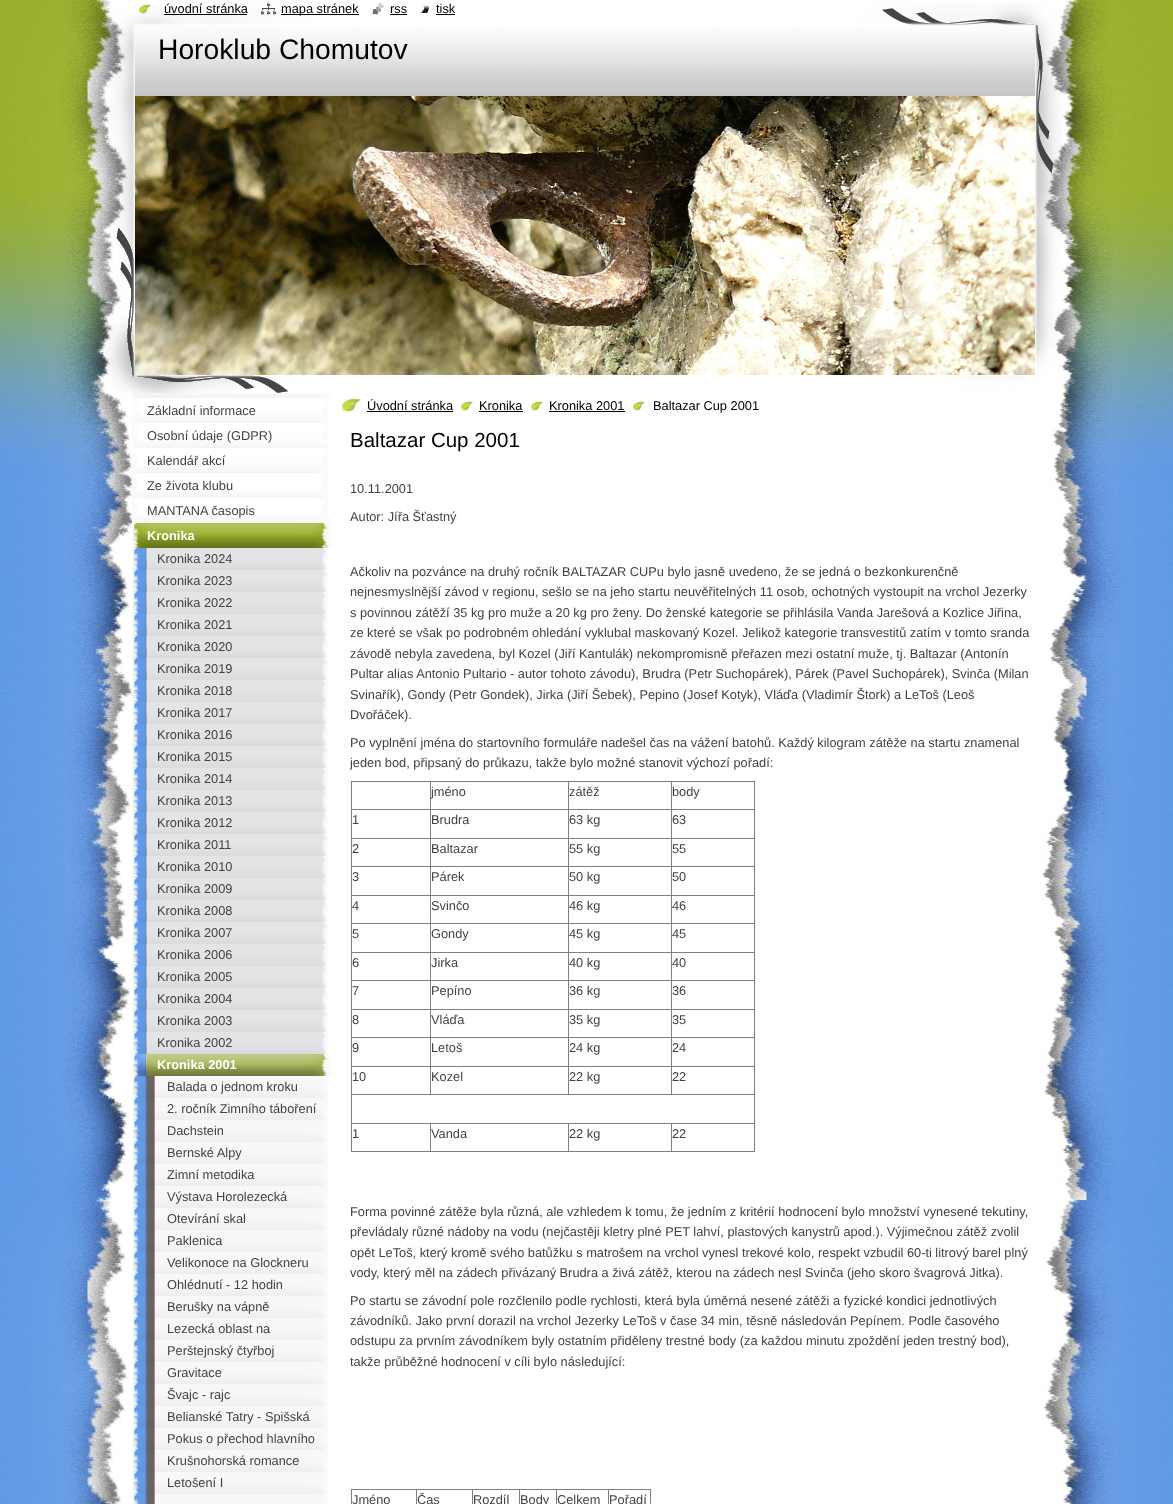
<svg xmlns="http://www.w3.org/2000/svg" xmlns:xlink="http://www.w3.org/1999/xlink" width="1173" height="1504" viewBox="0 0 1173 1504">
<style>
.cls-1{font:12.8px Liberation Sans;fill:#000000}
.cls-2{font:28.25px Liberation Sans;fill:#000000}
.cls-3{font:12.8px Liberation Sans;fill:#454143}
.cls-4{font:bold 12.8px Liberation Sans;fill:#ffffff}
.cls-5{font:20.5px Liberation Sans;fill:#000000}
</style>
<rect width="100%" height="100%" fill="#ffffff"/>
<image xlink:href="image0.png" x="0" y="479" width="1173" height="1025"/>
<image xlink:href="image1.png" x="0" y="0" width="1173" height="479"/>
<image xlink:href="image6.png" x="105" y="2" width="957" height="391"/>
<image xlink:href="image2.png" x="139" y="4" width="12" height="10"/>
<rect fill="#000000" x="164" y="14" width="83" height="1"/>
<image xlink:href="image3.png" x="261" y="2" width="16" height="13"/>
<rect fill="#000000" x="281" y="14" width="78" height="1"/>
<image xlink:href="image4.png" x="372" y="3" width="12" height="12"/>
<rect fill="#000000" x="390" y="14" width="17" height="1"/>
<image xlink:href="image5.png" x="421" y="5" width="8" height="8"/>
<rect fill="#000000" x="436" y="14" width="19" height="1"/>
<image xlink:href="image7.png" x="135" y="96" width="900" height="279"/>
<image xlink:href="image8.png" x="132" y="393" width="200" height="8"/>
<image xlink:href="image9.png" x="132" y="398" width="196" height="25"/>
<image xlink:href="image9.png" x="132" y="423" width="196" height="25"/>
<image xlink:href="image9.png" x="132" y="448" width="196" height="25"/>
<image xlink:href="image9.png" x="132" y="473" width="196" height="25"/>
<image xlink:href="image9.png" x="132" y="498" width="196" height="25"/>
<image xlink:href="image10.png" x="132" y="523" width="200" height="25"/>
<image xlink:href="image11.png" x="132" y="548" width="196" height="22"/>
<image xlink:href="image11.png" x="132" y="570" width="196" height="22"/>
<image xlink:href="image11.png" x="132" y="592" width="196" height="22"/>
<image xlink:href="image11.png" x="132" y="614" width="196" height="22"/>
<image xlink:href="image11.png" x="132" y="636" width="196" height="22"/>
<image xlink:href="image11.png" x="132" y="658" width="196" height="22"/>
<image xlink:href="image11.png" x="132" y="680" width="196" height="22"/>
<image xlink:href="image11.png" x="132" y="702" width="196" height="22"/>
<image xlink:href="image11.png" x="132" y="724" width="196" height="22"/>
<image xlink:href="image11.png" x="132" y="746" width="196" height="22"/>
<image xlink:href="image11.png" x="132" y="768" width="196" height="22"/>
<image xlink:href="image11.png" x="132" y="790" width="196" height="22"/>
<image xlink:href="image11.png" x="132" y="812" width="196" height="22"/>
<image xlink:href="image11.png" x="132" y="834" width="196" height="22"/>
<image xlink:href="image11.png" x="132" y="856" width="196" height="22"/>
<image xlink:href="image11.png" x="132" y="878" width="196" height="22"/>
<image xlink:href="image11.png" x="132" y="900" width="196" height="22"/>
<image xlink:href="image11.png" x="132" y="922" width="196" height="22"/>
<image xlink:href="image11.png" x="132" y="944" width="196" height="22"/>
<image xlink:href="image11.png" x="132" y="966" width="196" height="22"/>
<image xlink:href="image11.png" x="132" y="988" width="196" height="22"/>
<image xlink:href="image11.png" x="132" y="1010" width="196" height="22"/>
<image xlink:href="image11.png" x="132" y="1032" width="196" height="22"/>
<image xlink:href="image12.png" x="132" y="1054" width="200" height="22"/>
<image xlink:href="image13.png" x="132" y="1076" width="196" height="22"/>
<image xlink:href="image13.png" x="132" y="1098" width="196" height="22"/>
<image xlink:href="image13.png" x="132" y="1120" width="196" height="22"/>
<image xlink:href="image13.png" x="132" y="1142" width="196" height="22"/>
<image xlink:href="image13.png" x="132" y="1164" width="196" height="22"/>
<image xlink:href="image13.png" x="132" y="1186" width="196" height="22"/>
<image xlink:href="image13.png" x="132" y="1208" width="196" height="22"/>
<image xlink:href="image13.png" x="132" y="1230" width="196" height="22"/>
<image xlink:href="image13.png" x="132" y="1252" width="196" height="22"/>
<image xlink:href="image13.png" x="132" y="1274" width="196" height="22"/>
<image xlink:href="image13.png" x="132" y="1296" width="196" height="22"/>
<image xlink:href="image13.png" x="132" y="1318" width="196" height="22"/>
<image xlink:href="image13.png" x="132" y="1340" width="196" height="22"/>
<image xlink:href="image13.png" x="132" y="1362" width="196" height="22"/>
<image xlink:href="image13.png" x="132" y="1384" width="196" height="22"/>
<image xlink:href="image13.png" x="132" y="1406" width="196" height="22"/>
<image xlink:href="image13.png" x="132" y="1428" width="196" height="22"/>
<image xlink:href="image13.png" x="132" y="1450" width="196" height="22"/>
<image xlink:href="image13.png" x="132" y="1472" width="196" height="22"/>
<image xlink:href="image14.png" x="132" y="1494" width="196" height="10"/>
<image xlink:href="image15.png" x="342" y="398" width="19" height="14"/>
<rect fill="#000000" x="367" y="411" width="86" height="1"/>
<image xlink:href="image16.png" x="461" y="401" width="12" height="10"/>
<rect fill="#000000" x="479" y="411" width="44" height="1"/>
<image xlink:href="image16.png" x="531" y="401" width="12" height="10"/>
<rect fill="#000000" x="549" y="411" width="76" height="1"/>
<image xlink:href="image16.png" x="633" y="401" width="12" height="10"/>
<rect fill="#808080" x="351" y="781" width="404" height="1"/>
<rect fill="#808080" x="754" y="781" width="1" height="371"/>
<rect fill="#808080" x="351" y="1151" width="404" height="1"/>
<rect fill="#808080" x="351" y="781" width="1" height="371"/>
<rect fill="#808080" x="671" y="809" width="84" height="1"/>
<rect fill="#808080" x="671" y="838" width="84" height="1"/>
<rect fill="#808080" x="671" y="866" width="84" height="1"/>
<rect fill="#808080" x="671" y="895" width="84" height="1"/>
<rect fill="#808080" x="671" y="923" width="84" height="1"/>
<rect fill="#808080" x="671" y="952" width="84" height="1"/>
<rect fill="#808080" x="671" y="980" width="84" height="1"/>
<rect fill="#808080" x="671" y="1009" width="84" height="1"/>
<rect fill="#808080" x="671" y="1037" width="84" height="1"/>
<rect fill="#808080" x="671" y="1066" width="84" height="1"/>
<rect fill="#808080" x="351" y="1094" width="404" height="1"/>
<rect fill="#808080" x="671" y="1066" width="1" height="29"/>
<rect fill="#808080" x="568" y="1066" width="104" height="1"/>
<rect fill="#808080" x="671" y="1037" width="1" height="30"/>
<rect fill="#808080" x="568" y="1037" width="104" height="1"/>
<rect fill="#808080" x="671" y="1009" width="1" height="29"/>
<rect fill="#808080" x="568" y="1009" width="104" height="1"/>
<rect fill="#808080" x="671" y="980" width="1" height="30"/>
<rect fill="#808080" x="568" y="980" width="104" height="1"/>
<rect fill="#808080" x="671" y="952" width="1" height="29"/>
<rect fill="#808080" x="568" y="952" width="104" height="1"/>
<rect fill="#808080" x="671" y="923" width="1" height="30"/>
<rect fill="#808080" x="568" y="923" width="104" height="1"/>
<rect fill="#808080" x="671" y="895" width="1" height="29"/>
<rect fill="#808080" x="568" y="895" width="104" height="1"/>
<rect fill="#808080" x="671" y="866" width="1" height="30"/>
<rect fill="#808080" x="568" y="866" width="104" height="1"/>
<rect fill="#808080" x="671" y="838" width="1" height="29"/>
<rect fill="#808080" x="568" y="838" width="104" height="1"/>
<rect fill="#808080" x="671" y="809" width="1" height="30"/>
<rect fill="#808080" x="568" y="809" width="104" height="1"/>
<rect fill="#808080" x="568" y="1066" width="1" height="29"/>
<rect fill="#808080" x="430" y="1066" width="139" height="1"/>
<rect fill="#808080" x="568" y="1037" width="1" height="30"/>
<rect fill="#808080" x="430" y="1037" width="139" height="1"/>
<rect fill="#808080" x="568" y="1009" width="1" height="29"/>
<rect fill="#808080" x="430" y="1009" width="139" height="1"/>
<rect fill="#808080" x="568" y="980" width="1" height="30"/>
<rect fill="#808080" x="430" y="980" width="139" height="1"/>
<rect fill="#808080" x="568" y="952" width="1" height="29"/>
<rect fill="#808080" x="430" y="952" width="139" height="1"/>
<rect fill="#808080" x="568" y="923" width="1" height="30"/>
<rect fill="#808080" x="430" y="923" width="139" height="1"/>
<rect fill="#808080" x="568" y="895" width="1" height="29"/>
<rect fill="#808080" x="430" y="895" width="139" height="1"/>
<rect fill="#808080" x="568" y="866" width="1" height="30"/>
<rect fill="#808080" x="430" y="866" width="139" height="1"/>
<rect fill="#808080" x="568" y="838" width="1" height="29"/>
<rect fill="#808080" x="430" y="838" width="139" height="1"/>
<rect fill="#808080" x="568" y="809" width="1" height="30"/>
<rect fill="#808080" x="430" y="809" width="139" height="1"/>
<rect fill="#808080" x="430" y="1066" width="1" height="29"/>
<rect fill="#808080" x="351" y="1066" width="80" height="1"/>
<rect fill="#808080" x="430" y="1037" width="1" height="30"/>
<rect fill="#808080" x="351" y="1037" width="80" height="1"/>
<rect fill="#808080" x="430" y="1009" width="1" height="29"/>
<rect fill="#808080" x="351" y="1009" width="80" height="1"/>
<rect fill="#808080" x="430" y="980" width="1" height="30"/>
<rect fill="#808080" x="351" y="980" width="80" height="1"/>
<rect fill="#808080" x="430" y="952" width="1" height="29"/>
<rect fill="#808080" x="351" y="952" width="80" height="1"/>
<rect fill="#808080" x="430" y="923" width="1" height="30"/>
<rect fill="#808080" x="351" y="923" width="80" height="1"/>
<rect fill="#808080" x="430" y="895" width="1" height="29"/>
<rect fill="#808080" x="351" y="895" width="80" height="1"/>
<rect fill="#808080" x="430" y="866" width="1" height="30"/>
<rect fill="#808080" x="351" y="866" width="80" height="1"/>
<rect fill="#808080" x="430" y="838" width="1" height="29"/>
<rect fill="#808080" x="351" y="838" width="80" height="1"/>
<rect fill="#808080" x="430" y="809" width="1" height="30"/>
<rect fill="#808080" x="351" y="809" width="80" height="1"/>
<rect fill="#808080" x="430" y="781" width="1" height="29"/>
<rect fill="#808080" x="568" y="781" width="1" height="29"/>
<rect fill="#808080" x="671" y="781" width="1" height="29"/>
<rect fill="#808080" x="671" y="1123" width="84" height="1"/>
<rect fill="#808080" x="671" y="1123" width="1" height="29"/>
<rect fill="#808080" x="568" y="1123" width="104" height="1"/>
<rect fill="#808080" x="568" y="1123" width="1" height="29"/>
<rect fill="#808080" x="430" y="1123" width="139" height="1"/>
<rect fill="#808080" x="430" y="1123" width="1" height="29"/>
<rect fill="#808080" x="351" y="1123" width="80" height="1"/>
<rect fill="#808080" x="351" y="1489" width="300" height="1"/>
<rect fill="#808080" x="650" y="1489" width="1" height="15"/>
<rect fill="#808080" x="351" y="1489" width="1" height="15"/>
<rect fill="#808080" x="416" y="1489" width="1" height="15"/>
<rect fill="#808080" x="472" y="1489" width="1" height="15"/>
<rect fill="#808080" x="519" y="1489" width="1" height="15"/>
<rect fill="#808080" x="556" y="1489" width="1" height="15"/>
<rect fill="#808080" x="608" y="1489" width="1" height="15"/>
<text class="cls-1" x="164" y="13">úvodní stránka</text>
<text class="cls-1" x="281" y="13">mapa stránek</text>
<text class="cls-1" x="390" y="13">rss</text>
<text class="cls-1" x="436" y="13">tisk</text>
<text class="cls-2" x="158" y="59">Horoklub Chomutov</text>
<text class="cls-3"><tspan x="147" y="415">Základní informace</tspan><tspan x="147" y="440">Osobní údaje (GDPR)</tspan><tspan x="147" y="465">Kalendář akcí</tspan><tspan x="147" y="490">Ze života klubu</tspan><tspan x="147" y="515">MANTANA časopis</tspan></text>
<text class="cls-4" x="147" y="540">Kronika</text>
<text class="cls-3"><tspan x="157" y="563">Kronika 2024</tspan><tspan x="157" y="585">Kronika 2023</tspan><tspan x="157" y="607">Kronika 2022</tspan><tspan x="157" y="629">Kronika 2021</tspan><tspan x="157" y="651">Kronika 2020</tspan><tspan x="157" y="673">Kronika 2019</tspan><tspan x="157" y="695">Kronika 2018</tspan><tspan x="157" y="717">Kronika 2017</tspan><tspan x="157" y="739">Kronika 2016</tspan><tspan x="157" y="761">Kronika 2015</tspan><tspan x="157" y="783">Kronika 2014</tspan><tspan x="157" y="805">Kronika 2013</tspan><tspan x="157" y="827">Kronika 2012</tspan><tspan x="157" y="849">Kronika 2011</tspan><tspan x="157" y="871">Kronika 2010</tspan><tspan x="157" y="893">Kronika 2009</tspan><tspan x="157" y="915">Kronika 2008</tspan><tspan x="157" y="937">Kronika 2007</tspan><tspan x="157" y="959">Kronika 2006</tspan><tspan x="157" y="981">Kronika 2005</tspan><tspan x="157" y="1003">Kronika 2004</tspan><tspan x="157" y="1025">Kronika 2003</tspan><tspan x="157" y="1047">Kronika 2002</tspan></text>
<text class="cls-4" x="157" y="1069">Kronika 2001</text>
<text class="cls-3"><tspan x="167" y="1091">Balada o jednom kroku</tspan><tspan x="167" y="1113">2. ročník Zimního táboření</tspan><tspan x="167" y="1135">Dachstein</tspan><tspan x="167" y="1157">Bernské Alpy</tspan><tspan x="167" y="1179">Zimní metodika</tspan><tspan x="167" y="1201">Výstava Horolezecká</tspan><tspan x="167" y="1223">Otevírání skal</tspan><tspan x="167" y="1245">Paklenica</tspan><tspan x="167" y="1267">Velikonoce na Glockneru</tspan><tspan x="167" y="1289">Ohlédnutí - 12 hodin</tspan><tspan x="167" y="1311">Berušky na vápně</tspan><tspan x="167" y="1333">Lezecká oblast na</tspan><tspan x="167" y="1355">Perštejnský čtyřboj</tspan><tspan x="167" y="1377">Gravitace</tspan><tspan x="167" y="1399">Švajc - rajc</tspan><tspan x="167" y="1421">Belianské Tatry - Spišská</tspan><tspan x="167" y="1443">Pokus o přechod hlavního</tspan><tspan x="167" y="1465">Krušnohorská romance</tspan><tspan x="167" y="1487">Letošení I</tspan></text>
<text class="cls-1" x="367" y="410">Úvodní stránka</text>
<text class="cls-1" x="479" y="410">Kronika</text>
<text class="cls-1" x="549" y="410">Kronika 2001</text>
<text class="cls-1" x="653" y="410">Baltazar Cup 2001</text>
<text class="cls-5" x="350" y="447">Baltazar Cup 2001</text>
<text class="cls-3" x="350" y="493">10.11.2001</text>
<text class="cls-3" x="350" y="521">Autor: Jířa Šťastný</text>
<text class="cls-3"><tspan x="350" y="576">Ačkoliv na pozvánce na druhý ročník BALTAZAR CUPu bylo jasně uvedeno, že se jedná o bezkonkurenčně</tspan><tspan x="350" y="596">nejnesmyslnější závod v regionu, sešlo se na jeho startu neuvěřitelných 11 osob, ochotných vystoupit na vrchol Jezerky</tspan><tspan x="350" y="617">s povinnou zátěží 35 kg pro muže a 20 kg pro ženy. Do ženské kategorie se přihlásila Vanda Jarešová a Kozlice Jiřina,</tspan><tspan x="350" y="637">ze které se však po podrobném ohledání vyklubal maskovaný Kozel. Jelikož kategorie transvestitů zatím v tomto sranda</tspan><tspan x="350" y="658">závodě nebyla zavedena, byl Kozel (Jiří Kantulák) nekompromisně přeřazen mezi ostatní muže, tj. Baltazar (Antonín</tspan><tspan x="350" y="678">Pultar alias Antonio Pultario - autor tohoto závodu), Brudra (Petr Suchopárek), Párek (Pavel Suchopárek), Svinča (Milan</tspan><tspan x="350" y="699">Svinařík), Gondy (Petr Gondek), Jirka (Jiří Šebek), Pepino (Josef Kotyk), Vláďa (Vladimír Štork) a LeToš (Leoš</tspan><tspan x="350" y="719">Dvořáček).</tspan></text>
<text class="cls-3"><tspan x="350" y="747">Po vyplnění jména do startovního formuláře nadešel čas na vážení batohů. Každý kilogram zátěže na startu znamenal</tspan><tspan x="350" y="767">jeden bod, připsaný do průkazu, takže bylo možné stanovit výchozí pořadí:</tspan></text>
<text class="cls-3" x="431" y="796">jméno</text>
<text class="cls-3" x="569" y="796">zátěž</text>
<text class="cls-3" x="672" y="796">body</text>
<text class="cls-3" x="352" y="824">1</text>
<text class="cls-3" x="431" y="824">Brudra</text>
<text class="cls-3" x="569" y="824">63 kg</text>
<text class="cls-3" x="672" y="824">63</text>
<text class="cls-3" x="352" y="853">2</text>
<text class="cls-3" x="431" y="853">Baltazar</text>
<text class="cls-3" x="569" y="853">55 kg</text>
<text class="cls-3" x="672" y="853">55</text>
<text class="cls-3" x="352" y="881">3</text>
<text class="cls-3" x="431" y="881">Párek</text>
<text class="cls-3" x="569" y="881">50 kg</text>
<text class="cls-3" x="672" y="881">50</text>
<text class="cls-3" x="352" y="910">4</text>
<text class="cls-3" x="431" y="910">Svinčo</text>
<text class="cls-3" x="569" y="910">46 kg</text>
<text class="cls-3" x="672" y="910">46</text>
<text class="cls-3" x="352" y="938">5</text>
<text class="cls-3" x="431" y="938">Gondy</text>
<text class="cls-3" x="569" y="938">45 kg</text>
<text class="cls-3" x="672" y="938">45</text>
<text class="cls-3" x="352" y="967">6</text>
<text class="cls-3" x="431" y="967">Jirka</text>
<text class="cls-3" x="569" y="967">40 kg</text>
<text class="cls-3" x="672" y="967">40</text>
<text class="cls-3" x="352" y="995">7</text>
<text class="cls-3" x="431" y="995">Pepíno</text>
<text class="cls-3" x="569" y="995">36 kg</text>
<text class="cls-3" x="672" y="995">36</text>
<text class="cls-3" x="352" y="1024">8</text>
<text class="cls-3" x="431" y="1024">Vláďa</text>
<text class="cls-3" x="569" y="1024">35 kg</text>
<text class="cls-3" x="672" y="1024">35</text>
<text class="cls-3" x="352" y="1052">9</text>
<text class="cls-3" x="431" y="1052">Letoš</text>
<text class="cls-3" x="569" y="1052">24 kg</text>
<text class="cls-3" x="672" y="1052">24</text>
<text class="cls-3" x="352" y="1081">10</text>
<text class="cls-3" x="431" y="1081">Kozel</text>
<text class="cls-3" x="569" y="1081">22 kg</text>
<text class="cls-3" x="672" y="1081">22</text>
<text class="cls-3" x="352" y="1138">1</text>
<text class="cls-3" x="431" y="1138">Vanda</text>
<text class="cls-3" x="569" y="1138">22 kg</text>
<text class="cls-3" x="672" y="1138">22</text>
<text class="cls-3"><tspan x="350" y="1216">Forma povinné zátěže byla různá, ale vzhledem k tomu, že jedním z kritérií hodnocení bylo množství vynesené tekutiny,</tspan><tspan x="350" y="1236">převládaly různé nádoby na vodu (nejčastěji kletry plné PET lahví, plastových kanystrů apod.). Výjimečnou zátěž zvolil</tspan><tspan x="350" y="1257">opět LeToš, který kromě svého batůžku s matrošem na vrchol vynesl trekové kolo, respekt vzbudil 60-ti litrový barel plný</tspan><tspan x="350" y="1277">vody, který měl na zádech přivázaný Brudra a živá zátěž, kterou na zádech nesl Svinča (jeho skoro švagrová Jitka).</tspan></text>
<text class="cls-3"><tspan x="350" y="1305">Po startu se závodní pole rozčlenilo podle rychlosti, která byla úměrná nesené zátěži a fyzické kondici jednotlivých</tspan><tspan x="350" y="1325">závodníků. Jako první dorazil na vrchol Jezerky LeToš v čase 34 min, těsně následován Pepínem. Podle časového</tspan><tspan x="350" y="1345">odstupu za prvním závodníkem byly ostatním přiděleny trestné body (za každou minutu zpoždění jeden trestný bod),</tspan><tspan x="350" y="1366">takže průběžné hodnocení v cíli bylo následující:</tspan></text>
<text class="cls-3" x="352" y="1504">Jméno</text>
<text class="cls-3" x="417" y="1504">Čas</text>
<text class="cls-3" x="473" y="1504">Rozdíl</text>
<text class="cls-3" x="520" y="1504">Body</text>
<text class="cls-3" x="557" y="1504">Celkem</text>
<text class="cls-3" x="609" y="1504">Pořadí</text>
</svg>
